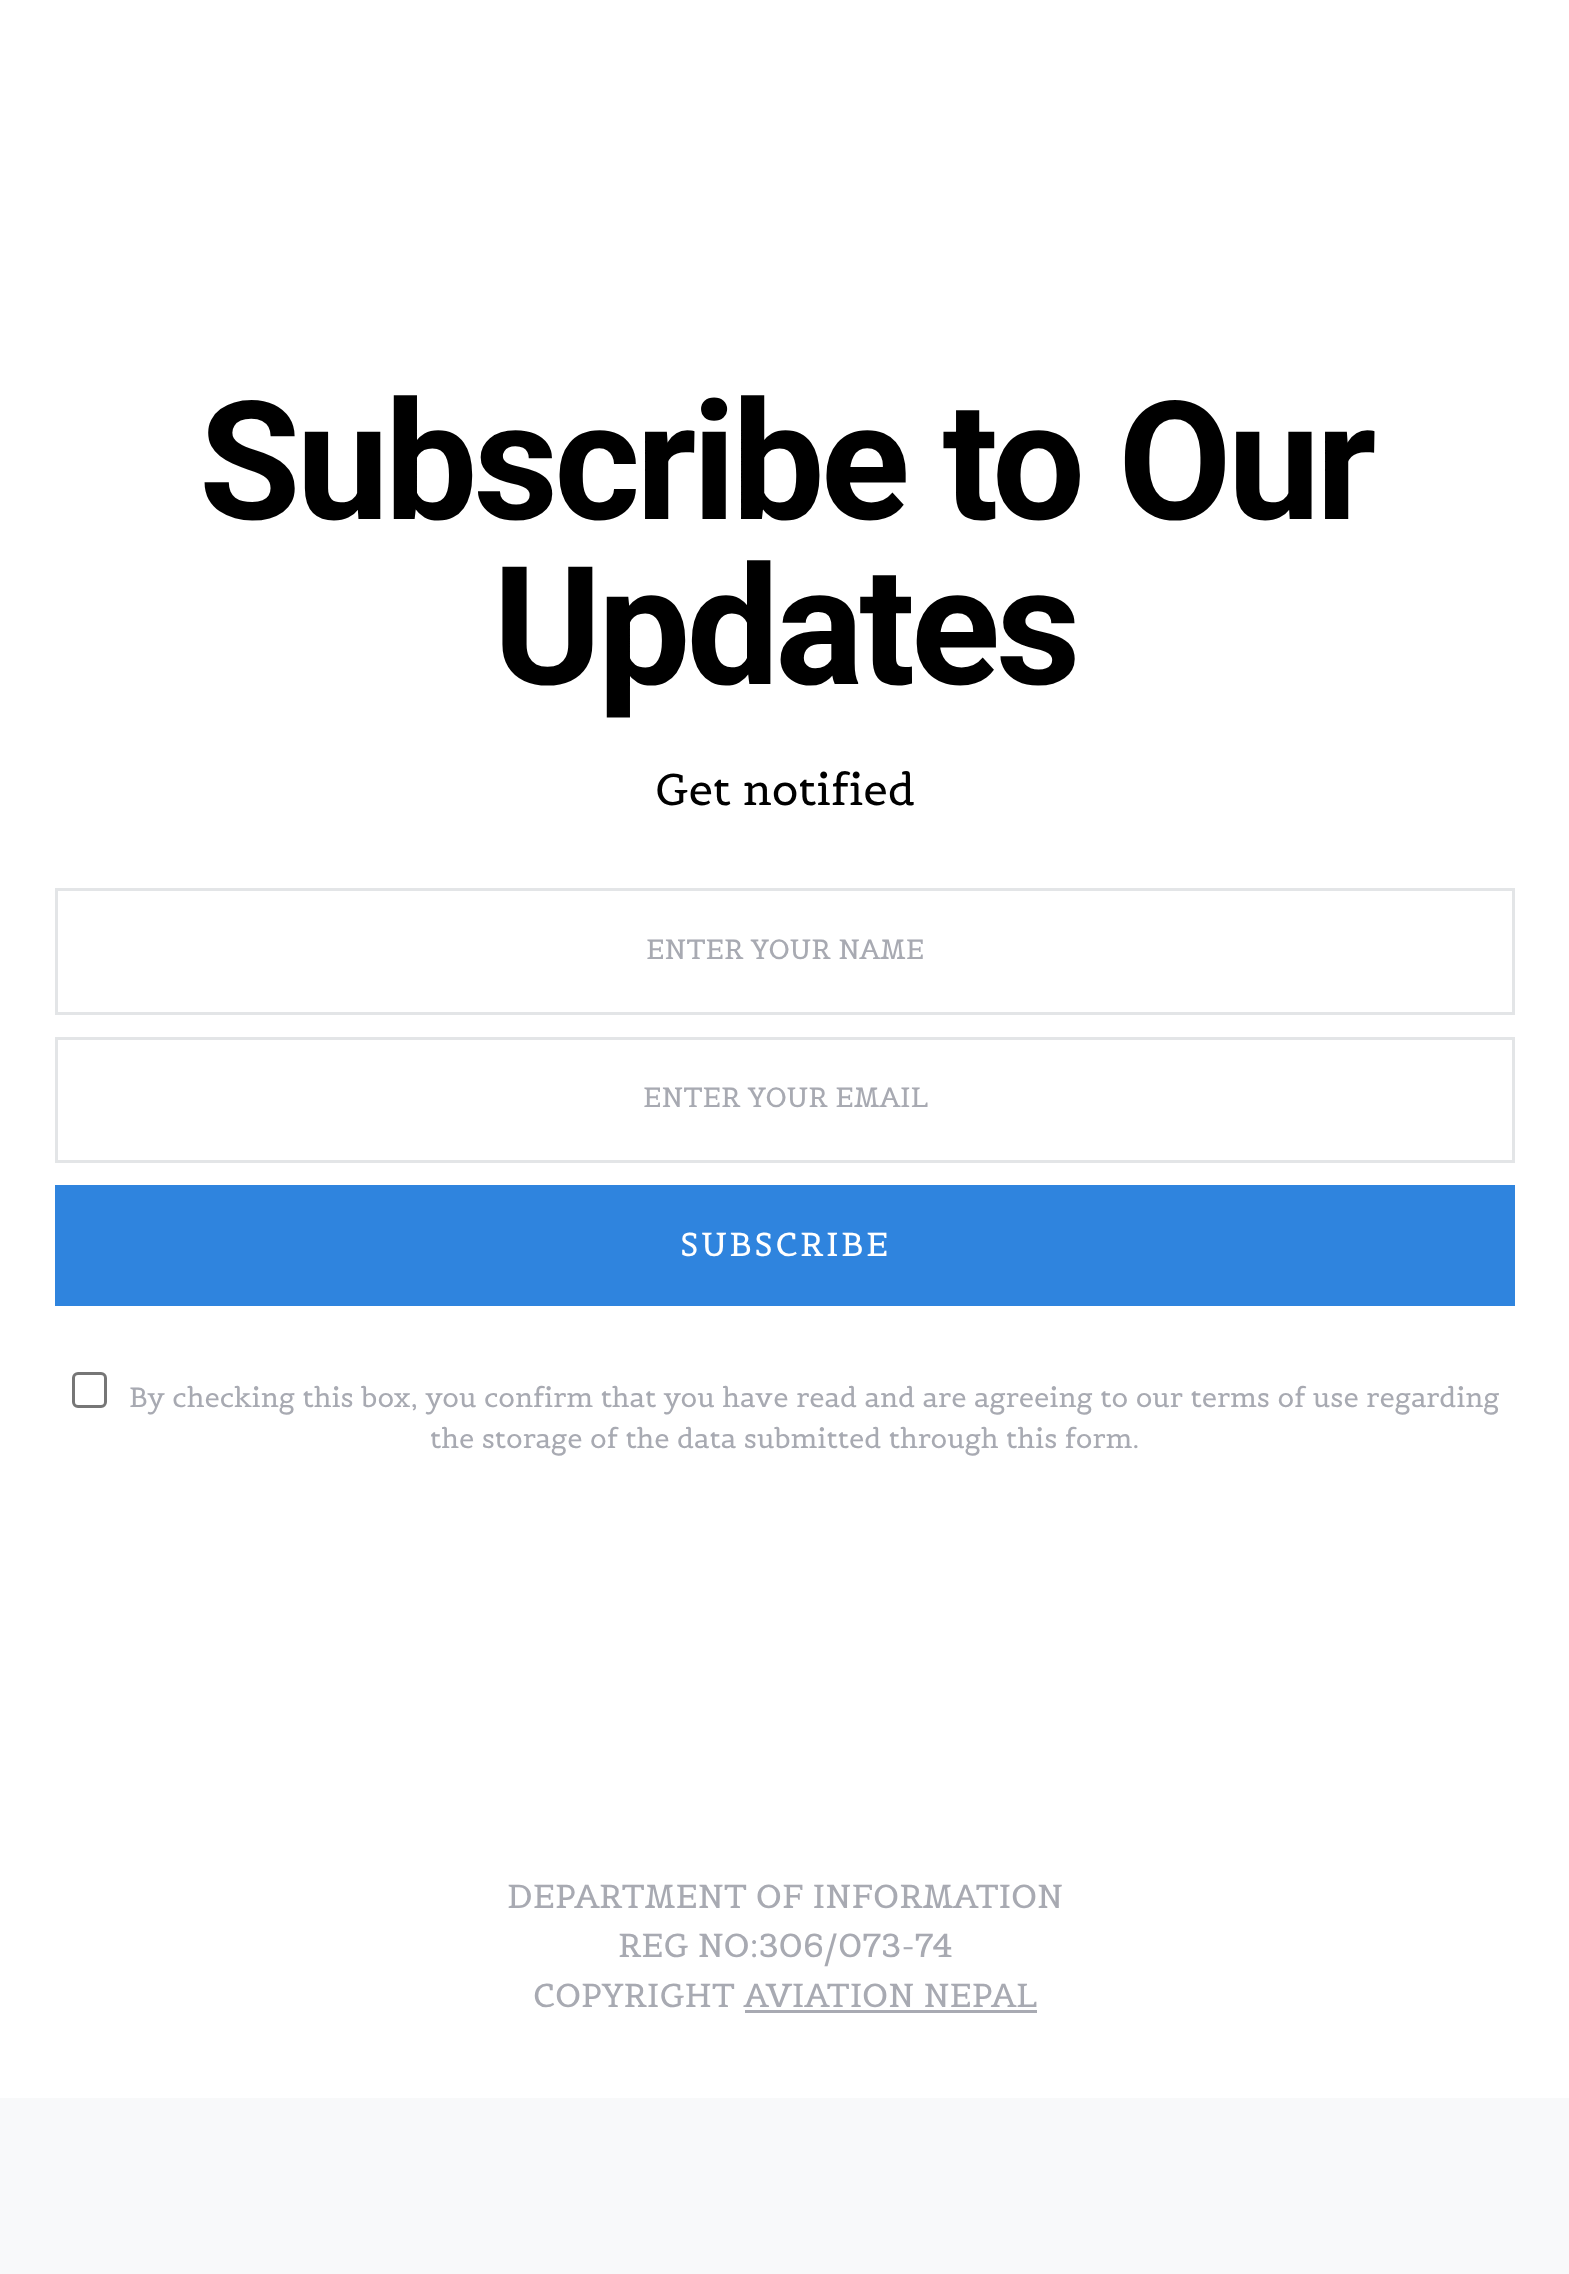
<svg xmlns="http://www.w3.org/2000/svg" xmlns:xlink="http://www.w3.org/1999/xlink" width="1569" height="2274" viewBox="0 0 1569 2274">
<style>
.cls-1{font:bold 165px Roboto;letter-spacing:-4.1px;fill:#000000}
.cls-2{font:44px Belgrano;fill:#000000}
.cls-3{font:27.5px Belgrano;fill:#a8aab2}
.cls-4{font:33px Belgrano;letter-spacing:2.5px;fill:#ffffff}
.cls-5{font:33px Belgrano;fill:#a8aab2}
</style>
<rect width="100%" height="100%" fill="#ffffff"/>
<rect fill="none" stroke="#e3e5e7" stroke-width="3" x="56.5" y="889.5" width="1457" height="124"/>
<rect fill="none" stroke="#e3e5e7" stroke-width="3" x="56.5" y="1038.5" width="1457" height="123"/>
<rect fill="#2f84de" x="55" y="1185" width="1460" height="121"/>
<rect fill="none" stroke="#767676" stroke-width="3" x="73.5" y="1373.5" width="32" height="33" rx="4.5"/>
<rect fill="#a8aab2" x="745" y="2010" width="292" height="3"/>
<rect fill="#f8f9fa" x="0" y="2098" width="1569" height="176"/>
<text class="cls-1" x="199" y="519">Subscribe to Our</text>
<text class="cls-1" x="493" y="684">Updates</text>
<text class="cls-2" x="655" y="805">Get notified</text>
<text class="cls-3" x="646" y="959">ENTER YOUR NAME</text>
<text class="cls-3" x="643" y="1107">ENTER YOUR EMAIL</text>
<text class="cls-4" x="680" y="1256">SUBSCRIBE</text>
<text class="cls-3" x="129" y="1407">By checking this box, you confirm that you have read and are agreeing to our terms of use regarding</text>
<text class="cls-3" x="430" y="1448">the storage of the data submitted through this form.</text>
<text class="cls-5" x="507" y="1908">DEPARTMENT OF INFORMATION</text>
<text class="cls-5" x="618" y="1957">REG NO:306/073-74</text>
<text class="cls-5" x="533" y="2007">COPYRIGHT AVIATION NEPAL</text>
</svg>
